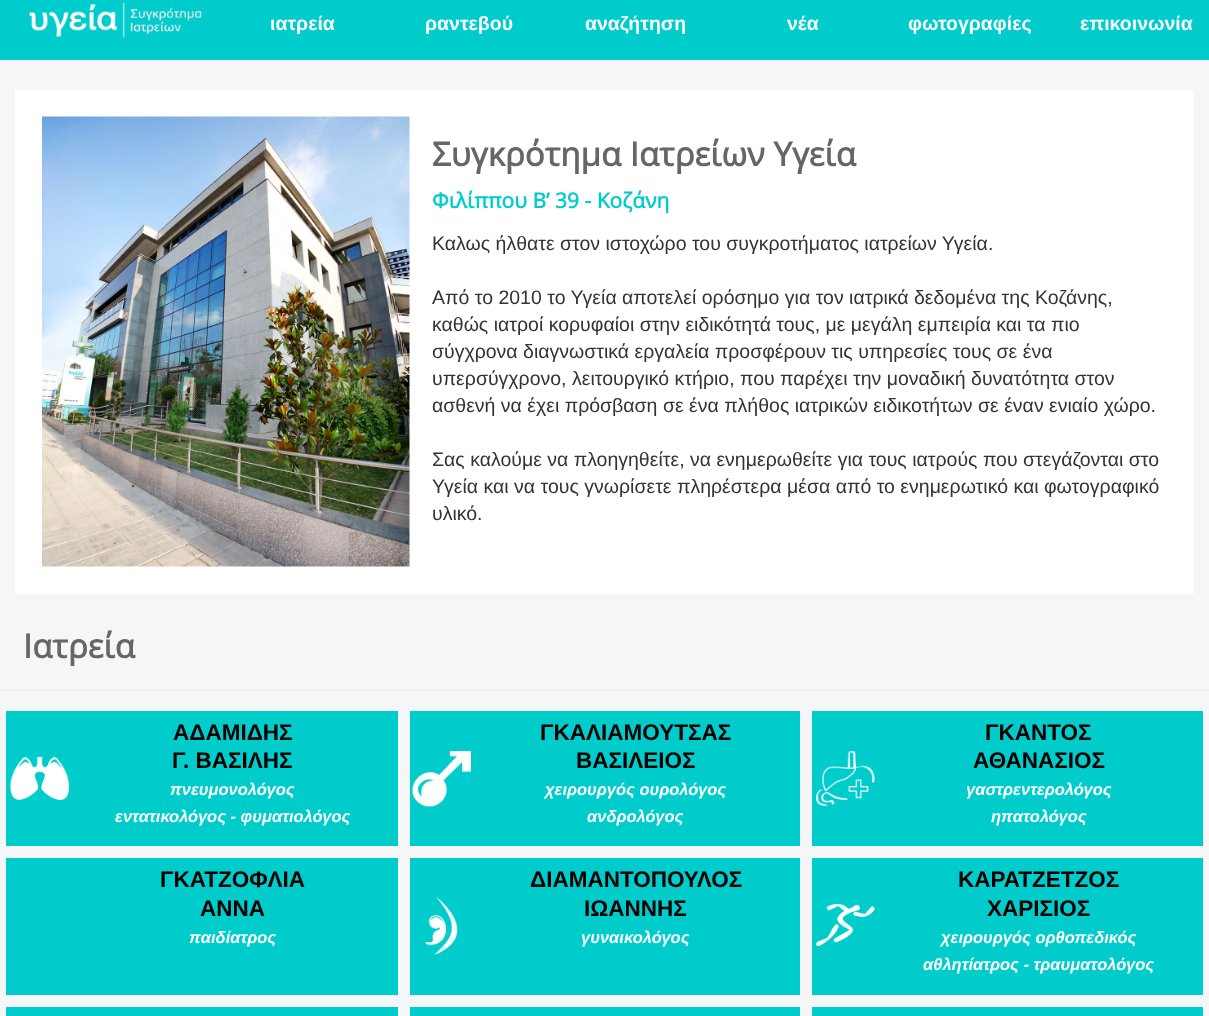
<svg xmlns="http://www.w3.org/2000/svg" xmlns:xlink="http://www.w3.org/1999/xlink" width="1209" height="1016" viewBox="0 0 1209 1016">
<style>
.cls-1{font:bold 19.5px Liberation Sans;fill:#ffffff}
.cls-2{font:bold 33px Open Sans;fill:#666666}
.cls-3{font:bold 21px Open Sans;fill:#00cccc}
.cls-4{font:19.5px Liberation Sans;fill:#333333}
.cls-5{font:bold 22.5px Liberation Sans;fill:#000000}
.cls-6{font:italic bold 16.5px Liberation Sans;fill:#ffffff}
</style>
<rect width="100%" height="100%" fill="#f4f6f7"/>
<rect fill="#00cccc" x="0" y="0" width="1209" height="60"/>
<image xlink:href="image0.png" x="29" y="2" width="173" height="36"/>
<rect fill="#ffffff" x="15" y="90" width="1179" height="504"/>
<image xlink:href="image1.png" x="42" y="116" width="368" height="451"/>
<rect fill="#eeeeee" x="0" y="689" width="1209" height="2"/>
<rect fill="#00cccc" x="6" y="711" width="392" height="135"/>
<image xlink:href="image2.png" x="10" y="756" width="59" height="44"/>
<rect fill="#00cccc" x="410" y="711" width="390" height="135"/>
<image xlink:href="image3.png" x="412" y="751" width="59" height="56"/>
<rect fill="#00cccc" x="812" y="711" width="391" height="135"/>
<image xlink:href="image4.png" x="816" y="751" width="59" height="55"/>
<rect fill="#00cccc" x="6" y="858" width="392" height="137"/>
<rect fill="#00cccc" x="410" y="858" width="390" height="137"/>
<image xlink:href="image5.png" x="425" y="896" width="33" height="59"/>
<rect fill="#00cccc" x="812" y="858" width="391" height="137"/>
<image xlink:href="image6.png" x="816" y="903" width="59" height="43"/>
<rect fill="#00cccc" x="6" y="1007" width="392" height="9"/>
<rect fill="#00cccc" x="410" y="1007" width="390" height="9"/>
<rect fill="#00cccc" x="812" y="1007" width="391" height="9"/>
<text class="cls-1" x="270" y="30">ιατρεία</text>
<text class="cls-1" x="425" y="30">ραντεβού</text>
<text class="cls-1" x="585" y="30">αναζήτηση</text>
<text class="cls-1" x="787" y="30">νέα</text>
<text class="cls-1" x="908" y="30">φωτογραφίες</text>
<text class="cls-1" x="1080" y="30">επικοινωνία</text>
<text class="cls-2" x="432" y="166">Συγκρότημα Ιατρείων Υγεία</text>
<text class="cls-3" x="432" y="208">Φιλίππου Β’ 39 - Κοζάνη</text>
<text class="cls-4" x="432" y="250">Καλως ήλθατε στον ιστοχώρο του συγκροτήματος ιατρείων Υγεία.</text>
<text class="cls-4"><tspan x="432" y="304">Από το 2010 το Υγεία αποτελεί ορόσημο για τον ιατρικά δεδομένα της Κοζάνης,</tspan><tspan x="432" y="331">καθώς ιατροί κορυφαίοι στην ειδικότητά τους, με μεγάλη εμπειρία και τα πιο</tspan><tspan x="432" y="358">σύγχρονα διαγνωστικά εργαλεία προσφέρουν τις υπηρεσίες τους σε ένα</tspan><tspan x="432" y="385">υπερσύγχρονο, λειτουργικό κτήριο, που παρέχει την μοναδική δυνατότητα στον</tspan><tspan x="432" y="412">ασθενή να έχει πρόσβαση σε ένα πλήθος ιατρικών ειδικοτήτων σε έναν ενιαίο χώρο.</tspan></text>
<text class="cls-4"><tspan x="432" y="466">Σας καλούμε να πλοηγηθείτε, να ενημερωθείτε για τους ιατρούς που στεγάζονται στο</tspan><tspan x="432" y="493">Υγεία και να τους γνωρίσετε πληρέστερα μέσα από το ενημερωτικό και φωτογραφικό</tspan><tspan x="432" y="520">υλικό.</tspan></text>
<text class="cls-2" x="23" y="658">Ιατρεία</text>
<text class="cls-5" x="173" y="740">ΑΔΑΜΙΔΗΣ</text>
<text class="cls-5" x="172" y="768">Γ. ΒΑΣΙΛΗΣ</text>
<text class="cls-6" x="170" y="795">πνευμονολόγος</text>
<text class="cls-6" x="115" y="822">εντατικολόγος - φυματιολόγος</text>
<text class="cls-5" x="540" y="740">ΓΚΑΛΙΑΜΟΥΤΣΑΣ</text>
<text class="cls-5" x="576" y="768">ΒΑΣΙΛΕΙΟΣ</text>
<text class="cls-6" x="545" y="795">χειρουργός ουρολόγος</text>
<text class="cls-6" x="587" y="822">ανδρολόγος</text>
<text class="cls-5" x="985" y="740">ΓΚΑΝΤΟΣ</text>
<text class="cls-5" x="973" y="768">ΑΘΑΝΑΣΙΟΣ</text>
<text class="cls-6" x="966" y="795">γαστρεντερολόγος</text>
<text class="cls-6" x="991" y="822">ηπατολόγος</text>
<text class="cls-5" x="160" y="887">ΓΚΑΤΖΟΦΛΙΑ</text>
<text class="cls-5" x="200" y="916">ΑΝΝΑ</text>
<text class="cls-6" x="189" y="943">παιδίατρος</text>
<text class="cls-5" x="530" y="887">ΔΙΑΜΑΝΤΟΠΟΥΛΟΣ</text>
<text class="cls-5" x="584" y="916">ΙΩΑΝΝΗΣ</text>
<text class="cls-6" x="581" y="943">γυναικολόγος</text>
<text class="cls-5" x="958" y="887">ΚΑΡΑΤΖΕΤΖΟΣ</text>
<text class="cls-5" x="987" y="916">ΧΑΡΙΣΙΟΣ</text>
<text class="cls-6" x="941" y="943">χειρουργός ορθοπεδικός</text>
<text class="cls-6" x="923" y="970">αθλητίατρος - τραυματολόγος</text>
</svg>
